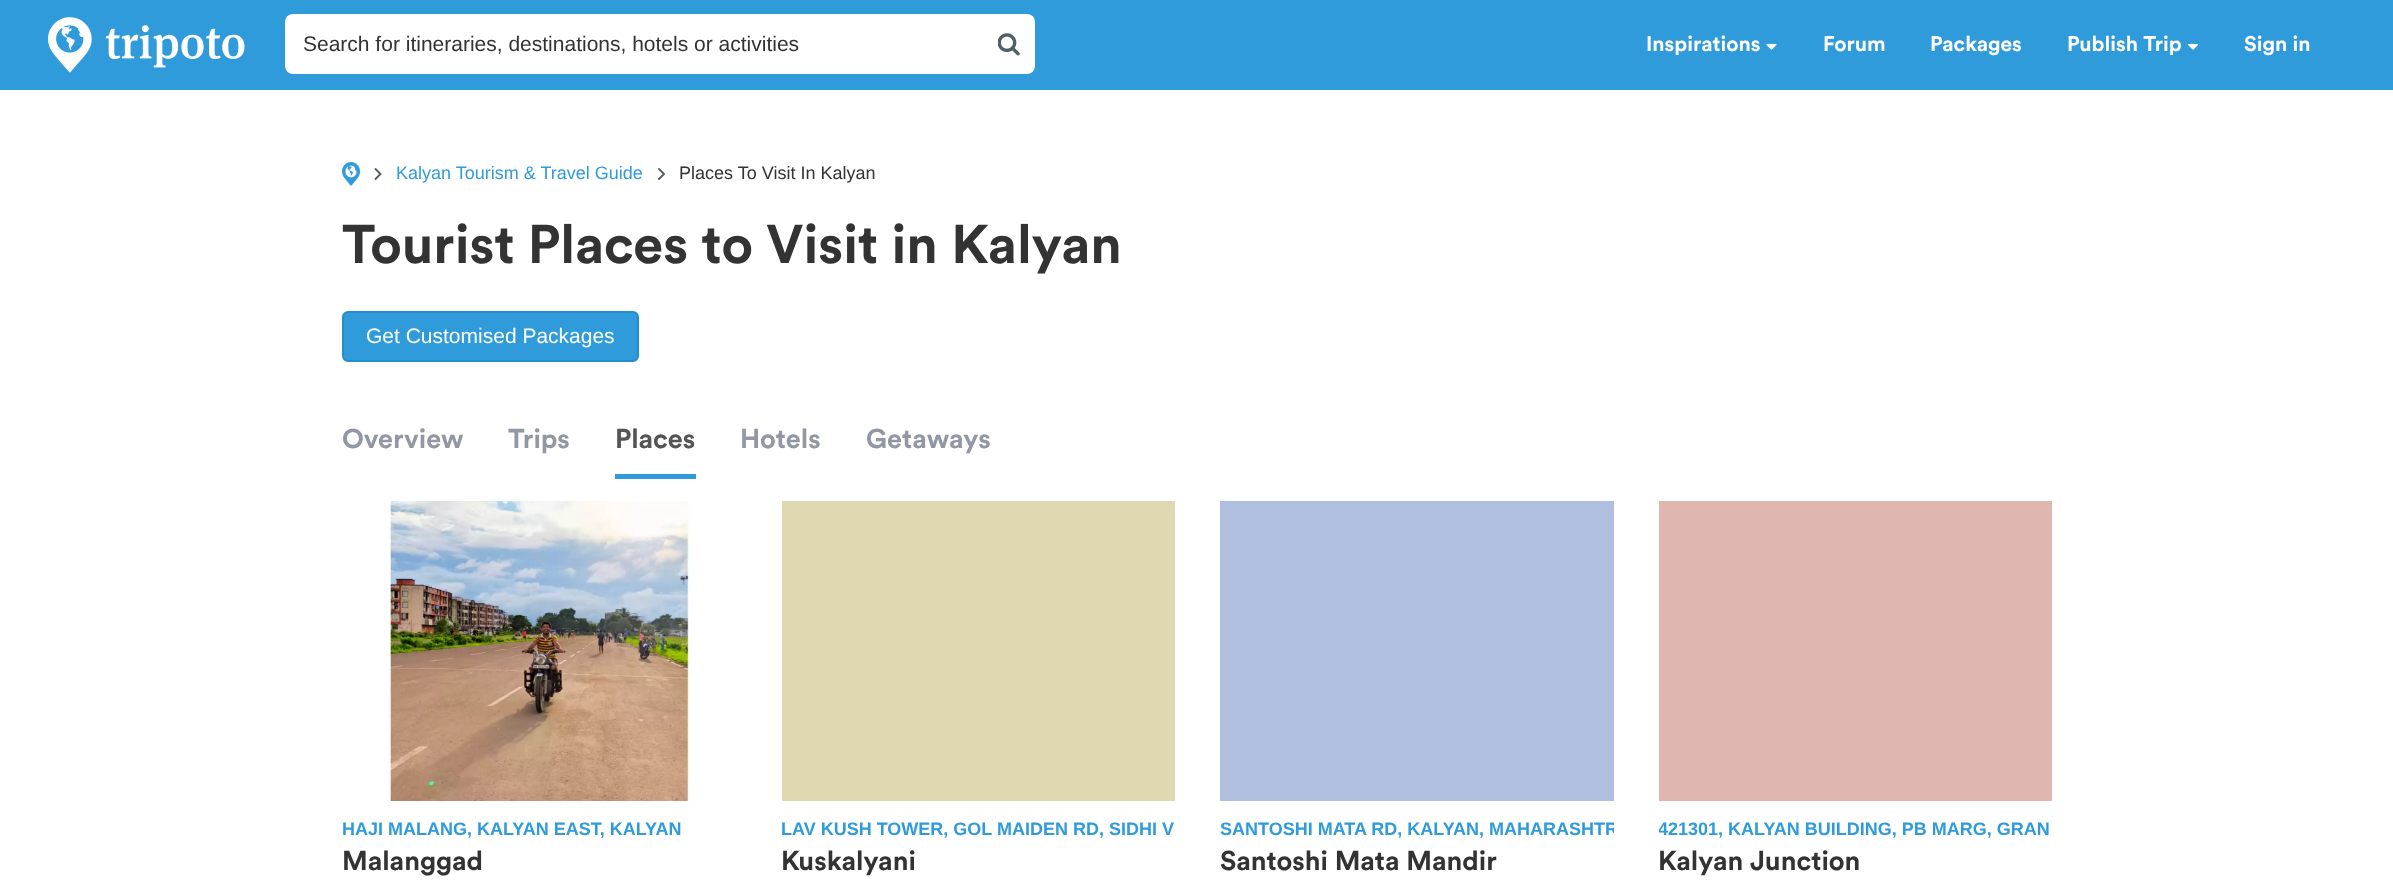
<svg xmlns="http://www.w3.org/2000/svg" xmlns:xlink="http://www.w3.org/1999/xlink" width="2393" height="883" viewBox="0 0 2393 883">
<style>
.cls-1{font:21px Liberation Sans;fill:#333333}
.cls-2{font:bold 21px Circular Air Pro;fill:#ffffff}
.cls-3{font:18px Liberation Sans;fill:#2f9bdb}
.cls-4{font:18px Liberation Sans;fill:#333333}
.cls-5{font:bold 54px Circular Air Pro;fill:#333333}
.cls-6{font:21px Liberation Sans;fill:#ffffff}
.cls-7{font:bold 27px Circular Air Pro;fill:#9197a3}
.cls-8{font:bold 27px Circular Air Pro;fill:#555555}
.cls-9{font:bold 18px Liberation Sans;fill:#2f9bdb}
.cls-10{font:bold 27px Circular Air Pro;fill:#333333}
</style>
<defs>
<clipPath id="clip1"><rect x="1220" y="813" width="394" height="30"/></clipPath>
<clipPath id="clip2"><rect x="1659" y="813" width="393" height="30"/></clipPath>
</defs>
<rect width="100%" height="100%" fill="#ffffff"/>
<rect fill="#2f9bdb" x="0" y="0" width="2393" height="90"/>
<image xlink:href="image0.png" x="48" y="17" width="197" height="56"/>
<rect fill="#ffffff" x="285" y="14" width="750" height="60" rx="8"/>
<image xlink:href="image1.png" x="998" y="33" width="22" height="23"/>
<image xlink:href="image2.png" x="1766" y="43" width="11" height="7"/>
<image xlink:href="image3.png" x="2187" y="43" width="12" height="7"/>
<image xlink:href="image4.png" x="342" y="162" width="18" height="24"/>
<path fill="none" stroke="#506066" stroke-width="1.9" stroke-linecap="round" d="M375.5 169L380.5 174L375.5 179"/>
<path fill="none" stroke="#506066" stroke-width="1.9" stroke-linecap="round" d="M659 169L664 174L659 179"/>
<rect fill="#2f9bdb" stroke="#238ecd" stroke-width="2" x="343" y="312" width="295" height="49" rx="5"/>
<rect fill="#2f9bdb" x="615" y="474" width="81" height="5"/>
<image xlink:href="image5.png" x="388" y="501" width="305" height="300"/>
<rect fill="#dfd8b0" x="782" y="501" width="393" height="300"/>
<rect fill="#b0bfdf" x="1220" y="501" width="394" height="300"/>
<rect fill="#dfb6b0" x="1659" y="501" width="393" height="300"/>
<text class="cls-1" x="303" y="51">Search for itineraries, destinations, hotels or activities</text>
<text class="cls-2" x="1646" y="51">Inspirations</text>
<text class="cls-2" x="1823" y="51">Forum</text>
<text class="cls-2" x="1930" y="51">Packages</text>
<text class="cls-2" x="2067" y="51">Publish Trip</text>
<text class="cls-2" x="2244" y="51">Sign in</text>
<text class="cls-3" x="396" y="179">Kalyan Tourism &amp; Travel Guide</text>
<text class="cls-4" x="679" y="179">Places To Visit In Kalyan</text>
<text class="cls-5" x="342" y="263">Tourist Places to Visit in Kalyan</text>
<text class="cls-6" x="366" y="343">Get Customised Packages</text>
<text class="cls-7" x="342" y="448">Overview</text>
<text class="cls-7" x="508" y="448">Trips</text>
<text class="cls-8" x="615" y="448">Places</text>
<text class="cls-7" x="740" y="448">Hotels</text>
<text class="cls-7" x="866" y="448">Getaways</text>
<text class="cls-9" x="342" y="835">HAJI MALANG, KALYAN EAST, KALYAN</text>
<text class="cls-10" x="342" y="870">Malanggad</text>
<text class="cls-9" x="781" y="835">LAV KUSH TOWER, GOL MAIDEN RD, SIDHI V</text>
<text class="cls-10" x="781" y="870">Kuskalyani</text>
<g clip-path="url(#clip1)">
<text class="cls-9" x="1220" y="835">SANTOSHI MATA RD, KALYAN, MAHARASHTR</text>
</g>
<text class="cls-10" x="1220" y="870">Santoshi Mata Mandir</text>
<g clip-path="url(#clip2)">
<text class="cls-9" x="1658" y="835">421301, KALYAN BUILDING, PB MARG, GRAN</text>
</g>
<text class="cls-10" x="1658" y="870">Kalyan Junction</text>
</svg>
